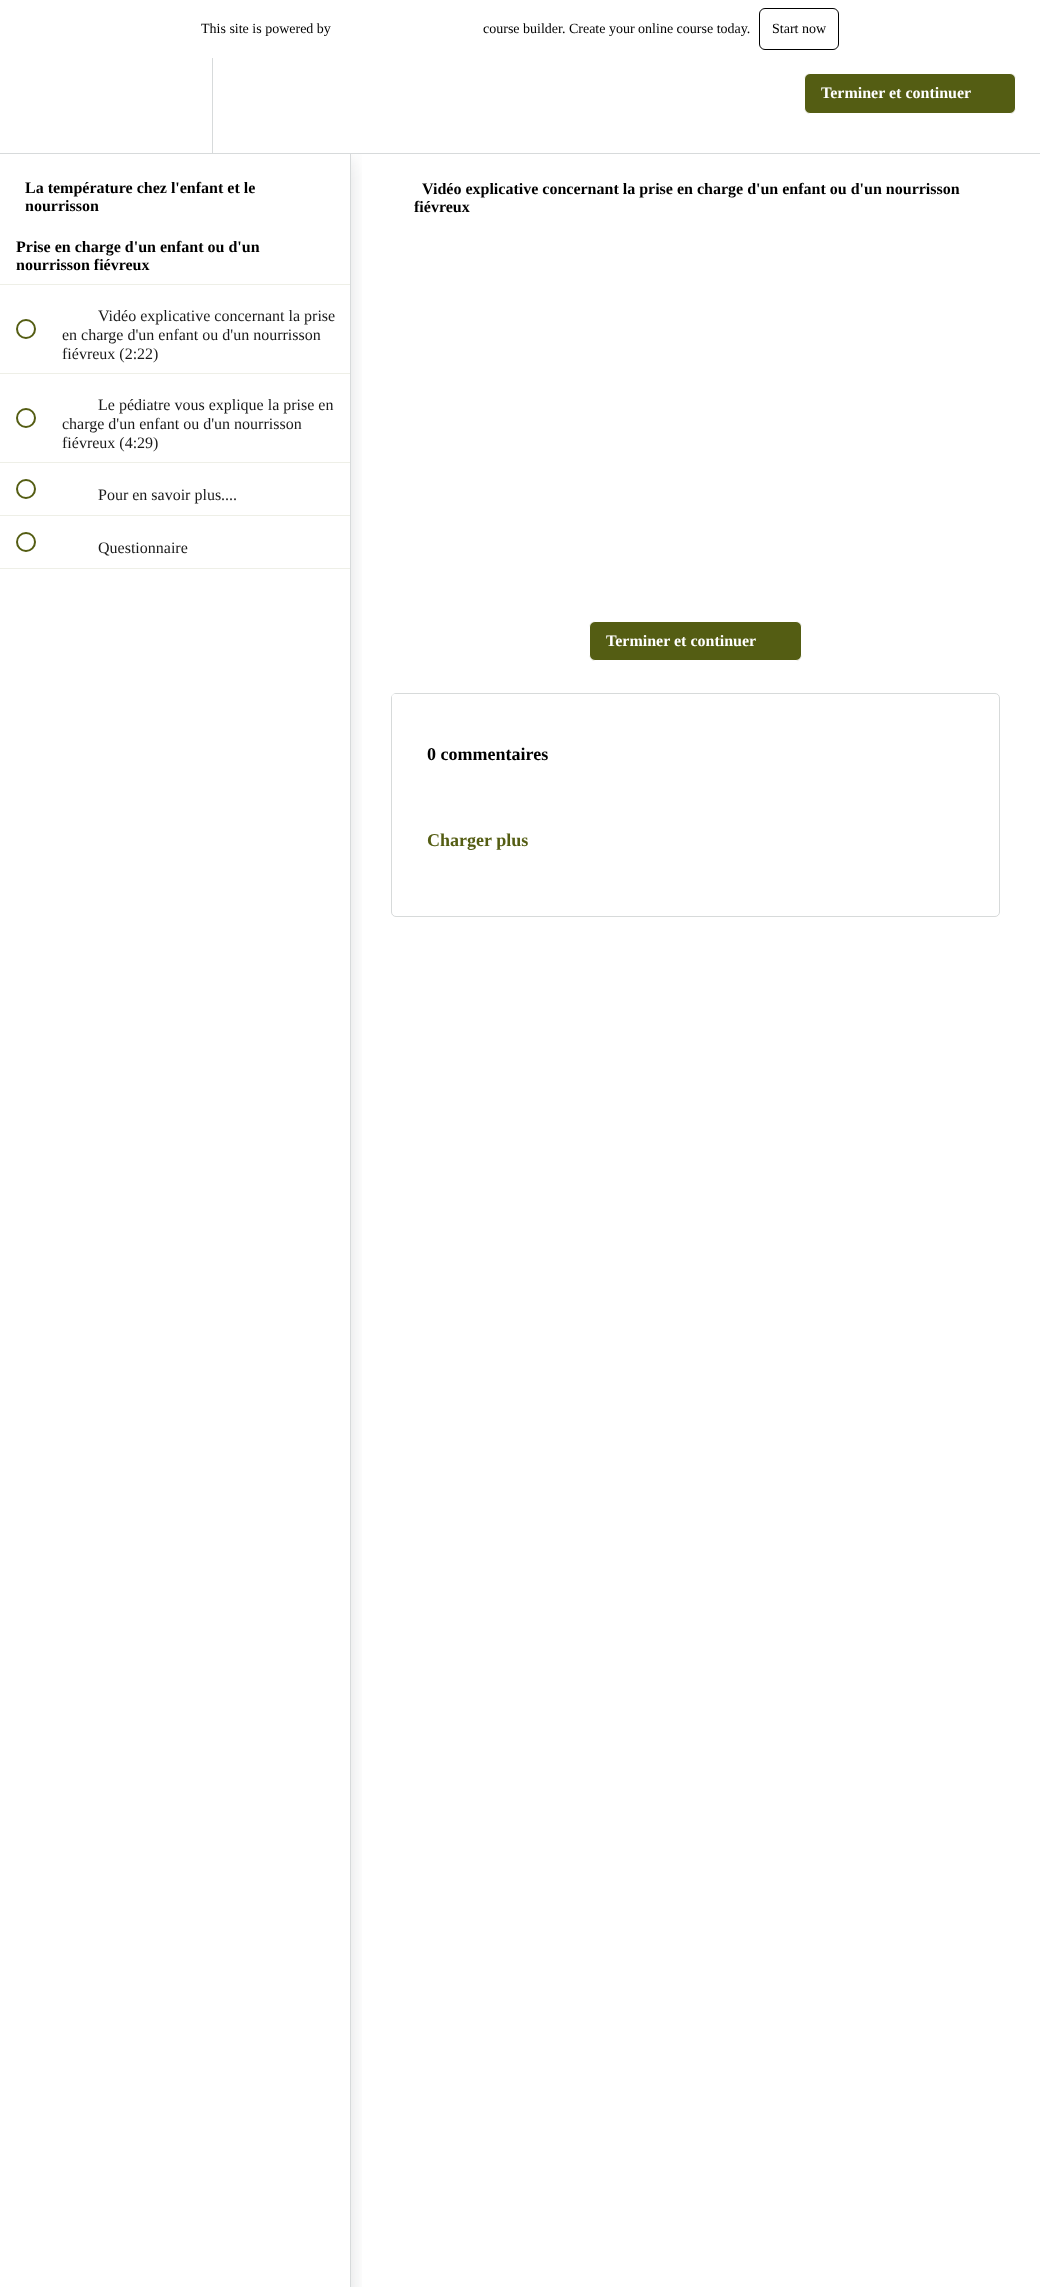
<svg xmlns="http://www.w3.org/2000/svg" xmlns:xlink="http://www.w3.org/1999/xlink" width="1040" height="2287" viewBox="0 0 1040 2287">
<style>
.cls-1{font:14px Liberation Serif;fill:#000000}
.cls-2{font:bold 16px Liberation Serif;fill:#ffffff}
.cls-3{font:bold 16px Liberation Serif;fill:#000000}
.cls-4{font:16px Liberation Serif;fill:#1a1a1a}
.cls-5{font:bold 18px Liberation Serif;fill:#000000}
.cls-6{font:bold 18px Liberation Serif;fill:#545d13}
</style>
<defs>
<clipPath id="clip1"><rect x="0" y="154" width="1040" height="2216"/></clipPath>
<clipPath id="clip2"><rect x="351" y="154" width="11" height="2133"/></clipPath>
</defs>
<rect width="100%" height="100%" fill="#ffffff"/>
<g clip-path="url(#clip1)">
<g clip-path="url(#clip2)">
<rect fill="#20272d" fill-opacity="0.15" filter="blur(10px)" x="0" y="160" width="351" height="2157"/>
</g>
</g>
<rect fill="#d7dadb" x="0" y="153" width="1040" height="1"/>
<rect fill="none" stroke="#000000" x="759.5" y="8.5" width="79" height="41" rx="5.5"/>
<rect fill="#d7dadb" x="212" y="58" width="1" height="95"/>
<rect fill="#545d13" stroke="#ffffff" x="804.5" y="73.5" width="211" height="40" rx="5.5"/>
<rect fill="#d7dadb" x="350" y="154" width="1" height="2133"/>
<rect fill="#eeefe7" x="0" y="284" width="350" height="1"/>
<rect fill="#eeefe7" x="0" y="373" width="350" height="1"/>
<circle fill="none" stroke="#545d13" stroke-width="2" cx="26" cy="329" r="9"/>
<rect fill="#eeefe7" x="0" y="462" width="350" height="1"/>
<circle fill="none" stroke="#545d13" stroke-width="2" cx="26" cy="418" r="9"/>
<rect fill="#eeefe7" x="0" y="515" width="350" height="1"/>
<circle fill="none" stroke="#545d13" stroke-width="2" cx="26" cy="489" r="9"/>
<rect fill="#eeefe7" x="0" y="568" width="350" height="1"/>
<circle fill="none" stroke="#545d13" stroke-width="2" cx="26" cy="542" r="9"/>
<rect fill="#545d13" stroke="#ffffff" x="589.5" y="621.5" width="212" height="39" rx="5.5"/>
<rect fill="none" stroke="#d7dada" x="391.5" y="693.5" width="608" height="223" rx="4.5"/>
<rect fill="#ffffff" x="392" y="694" width="98" height="27" rx="3"/>
<text class="cls-1" x="201" y="33">This site is powered by</text>
<text class="cls-1" x="483" y="33">course builder. Create your online course today.</text>
<text class="cls-1" x="772" y="33">Start now</text>
<text class="cls-2" x="821" y="98">Terminer et continuer</text>
<text class="cls-3"><tspan x="25" y="193">La température chez l'enfant et le</tspan><tspan x="25" y="211">nourrisson</tspan></text>
<text class="cls-3"><tspan x="16" y="252">Prise en charge d'un enfant ou d'un</tspan><tspan x="16" y="270">nourrisson fiévreux</tspan></text>
<text class="cls-4" x="98" y="321">Vidéo explicative concernant la prise</text>
<text class="cls-4"><tspan x="62" y="340">en charge d'un enfant ou d'un nourrisson</tspan><tspan x="62" y="359">fiévreux (2:22)</tspan></text>
<text class="cls-4" x="98" y="410">Le pédiatre vous explique la prise en</text>
<text class="cls-4"><tspan x="62" y="429">charge d'un enfant ou d'un nourrisson</tspan><tspan x="62" y="448">fiévreux (4:29)</tspan></text>
<text class="cls-4" x="98" y="500">Pour en savoir plus....</text>
<text class="cls-4" x="98" y="553">Questionnaire</text>
<text class="cls-3" x="422" y="194">Vidéo explicative concernant la prise en charge d'un enfant ou d'un nourrisson</text>
<text class="cls-3" x="414" y="212">fiévreux</text>
<text class="cls-2" x="606" y="646">Terminer et continuer</text>
<text class="cls-5" x="427" y="760">0 commentaires</text>
<text class="cls-6" x="427" y="846">Charger plus</text>
</svg>
